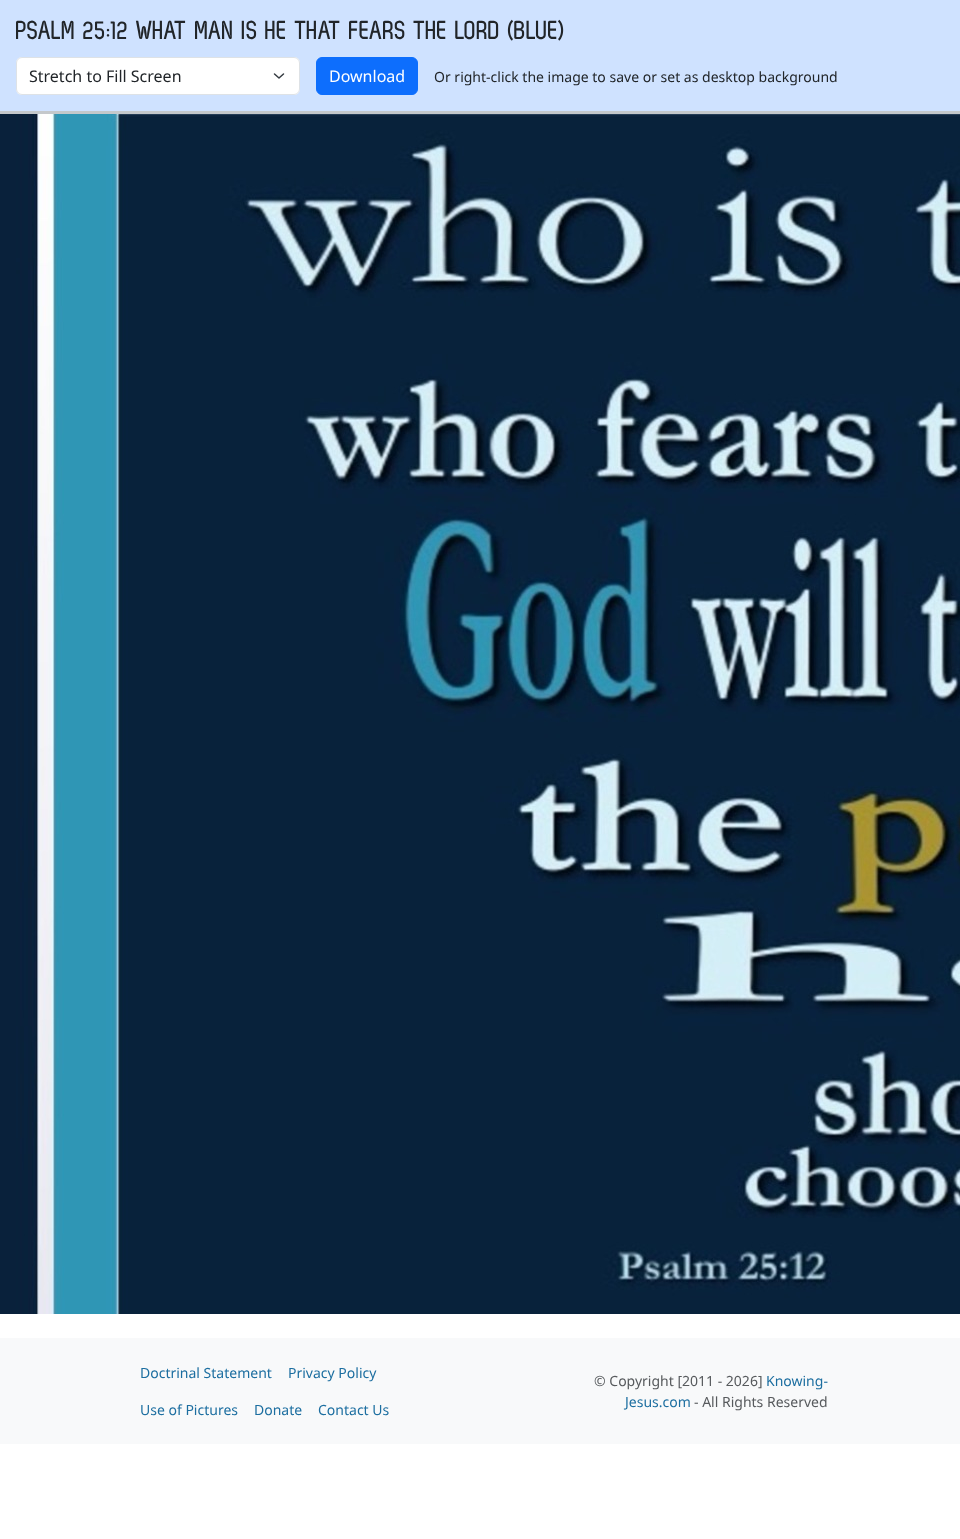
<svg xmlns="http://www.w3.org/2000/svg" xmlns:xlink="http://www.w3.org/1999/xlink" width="960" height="1539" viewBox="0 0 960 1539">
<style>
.cls-1{font:bold 26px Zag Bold;fill:#212529}
.cls-2{font:16px Noto Sans;fill:#212529}
.cls-3{font:16px Noto Sans;fill:#ffffff}
.cls-4{font:14px Noto Sans;fill:#212529}
.cls-5{font:14px Noto Sans;fill:#1c6ea0}
.cls-6{font:14px Noto Sans;fill:#575a5d}
</style>
<rect width="100%" height="100%" fill="#ffffff"/>
<rect fill="#cfe2ff" x="0" y="0" width="960" height="111"/>
<rect fill="#c4c8cb" x="0" y="111" width="960" height="3"/>
<rect fill="#ffffff" x="16" y="57" width="284" height="38" rx="6"/>
<path fill="none" stroke="#343a40" stroke-width="1.5" stroke-linecap="round" stroke-linejoin="round" d="M274.5 74L279 78L283.5 74"/>
<rect fill="none" stroke="#dee2e6" x="16.5" y="57.5" width="283" height="37" rx="5.5"/>
<rect fill="#0d6efd" stroke="#0d6efd" x="316.5" y="57.5" width="101" height="37" rx="5.5"/>
<image xlink:href="image0.png" x="0" y="114" width="960" height="1200"/>
<rect fill="#f8f9fa" x="0" y="1338" width="960" height="106"/>
<text class="cls-1" x="16" y="39">PSALM 25:12 WHAT MAN IS HE THAT FEARS THE LORD (BLUE)</text>
<text class="cls-2" x="29" y="82">Stretch to Fill Screen</text>
<text class="cls-3" x="329" y="82">Download</text>
<text class="cls-4" x="434" y="82">Or right-click the image to save or set as desktop background</text>
<text class="cls-5" x="140" y="1378">Doctrinal Statement</text>
<text class="cls-5" x="288" y="1378">Privacy Policy</text>
<text class="cls-5" x="140" y="1415">Use of Pictures</text>
<text class="cls-5" x="254" y="1415">Donate</text>
<text class="cls-5" x="318" y="1415">Contact Us</text>
<text class="cls-6" x="594" y="1386">© Copyright [2011 - 2026]</text>
<text class="cls-5" x="766" y="1386">Knowing-</text>
<text class="cls-5" x="625" y="1407">Jesus.com</text>
<text class="cls-6" x="694" y="1407">- All Rights Reserved</text>
</svg>
